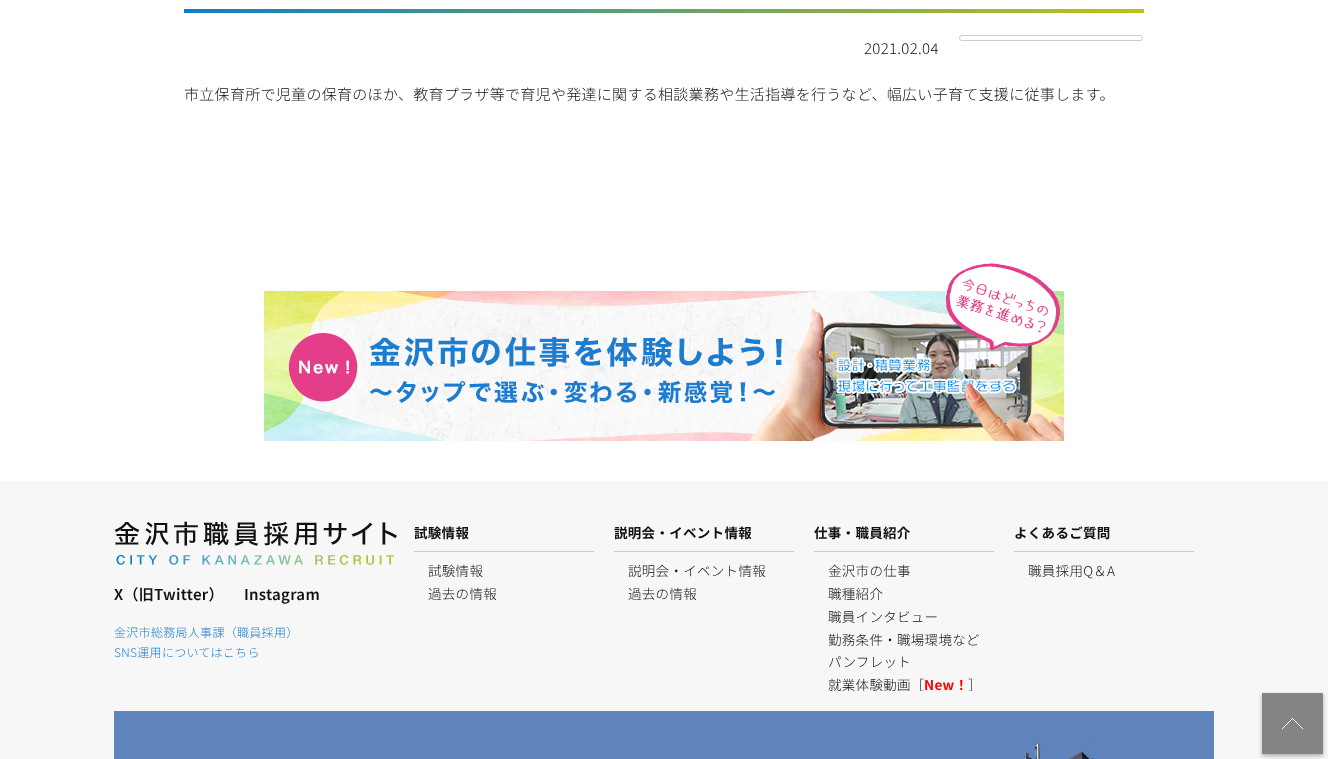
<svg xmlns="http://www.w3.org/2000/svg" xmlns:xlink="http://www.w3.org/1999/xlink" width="1328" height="759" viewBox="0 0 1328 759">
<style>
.cls-1{font:300 15px Noto Sans JP;letter-spacing:0.3px;fill:#111111}
.cls-2{font:600 15px Noto Sans JP;letter-spacing:0.3px;fill:#111111}
.cls-3{font:300 12px Noto Sans JP;letter-spacing:0.3px;fill:#1a7dd0}
.cls-4{font:bold 13.5px Noto Sans JP;letter-spacing:0.3px;fill:#111111}
.cls-5{font:300 13.5px Noto Sans JP;letter-spacing:0.3px;fill:#111111}
.cls-6{font:bold 13.5px Noto Sans JP;letter-spacing:0.3px;fill:#ff0000}
</style>
<defs>
<linearGradient id="g1" gradientUnits="userSpaceOnUse" x1="1144" y1="11" x2="184" y2="11"><stop offset="0" stop-color="#bdc219"/><stop offset="1" stop-color="#107fc3"/></linearGradient>
<clipPath id="clip1"><path d="M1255 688H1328V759H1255ZM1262 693H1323V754H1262Z" clip-rule="evenodd"/></clipPath>
</defs>
<rect width="100%" height="100%" fill="#ffffff"/>
<rect fill="url(#g1)" x="184" y="9" width="960" height="4"/>
<rect fill="none" stroke="#cccccc" x="959.5" y="35.5" width="183" height="5" rx="2.5"/>
<image xlink:href="image0.png" x="264" y="263" width="800" height="178"/>
<rect fill="#f7f7f7" x="0" y="481" width="1328" height="278"/>
<image xlink:href="image1.png" x="114" y="521" width="283" height="44"/>
<rect fill="#cccccc" x="414" y="551" width="180" height="1"/>
<rect fill="#cccccc" x="614" y="551" width="180" height="1"/>
<rect fill="#cccccc" x="814" y="551" width="180" height="1"/>
<rect fill="#cccccc" x="1014" y="551" width="180" height="1"/>
<rect fill="#5f84bb" x="114" y="711" width="1100" height="48"/>
<image xlink:href="image2.png" x="1023" y="738" width="74" height="21"/>
<g clip-path="url(#clip1)">
<rect fill="#000000" fill-opacity="0.3" filter="blur(2px)" x="1262" y="695" width="61" height="61"/>
</g>
<image xlink:href="image3.png" x="1262" y="693" width="61" height="61"/>
<text class="cls-1" x="864" y="54">2021.02.04</text>
<text class="cls-1" x="184" y="100">市立保育所で児童の保育のほか、教育プラザ等で育児や発達に関する相談業務や生活指導を行うなど、幅広い子育て支援に従事します。</text>
<text class="cls-2" x="114" y="600">X（旧Twitter）</text>
<text class="cls-2" x="244" y="600">Instagram</text>
<text class="cls-3"><tspan x="114" y="637">金沢市総務局人事課（職員採用）</tspan><tspan x="114" y="657">SNS運用についてはこちら</tspan></text>
<text class="cls-4" x="414" y="538">試験情報</text>
<text class="cls-5"><tspan x="428" y="576">試験情報</tspan><tspan x="428" y="599">過去の情報</tspan></text>
<text class="cls-4" x="614" y="538">説明会・イベント情報</text>
<text class="cls-5"><tspan x="628" y="576">説明会・イベント情報</tspan><tspan x="628" y="599">過去の情報</tspan></text>
<text class="cls-4" x="814" y="538">仕事・職員紹介</text>
<text class="cls-5"><tspan x="828" y="576">金沢市の仕事</tspan><tspan x="828" y="599">職種紹介</tspan><tspan x="828" y="622">職員インタビュー</tspan><tspan x="828" y="645">勤務条件・職場環境など</tspan><tspan x="828" y="667">パンフレット</tspan><tspan x="828" y="690">就業体験動画［</tspan></text>
<text class="cls-6" x="924" y="690">New！</text>
<text class="cls-5" x="968" y="690">］</text>
<text class="cls-4" x="1014" y="538">よくあるご質問</text>
<text class="cls-5" x="1028" y="576">職員採用Q＆A</text>
</svg>
